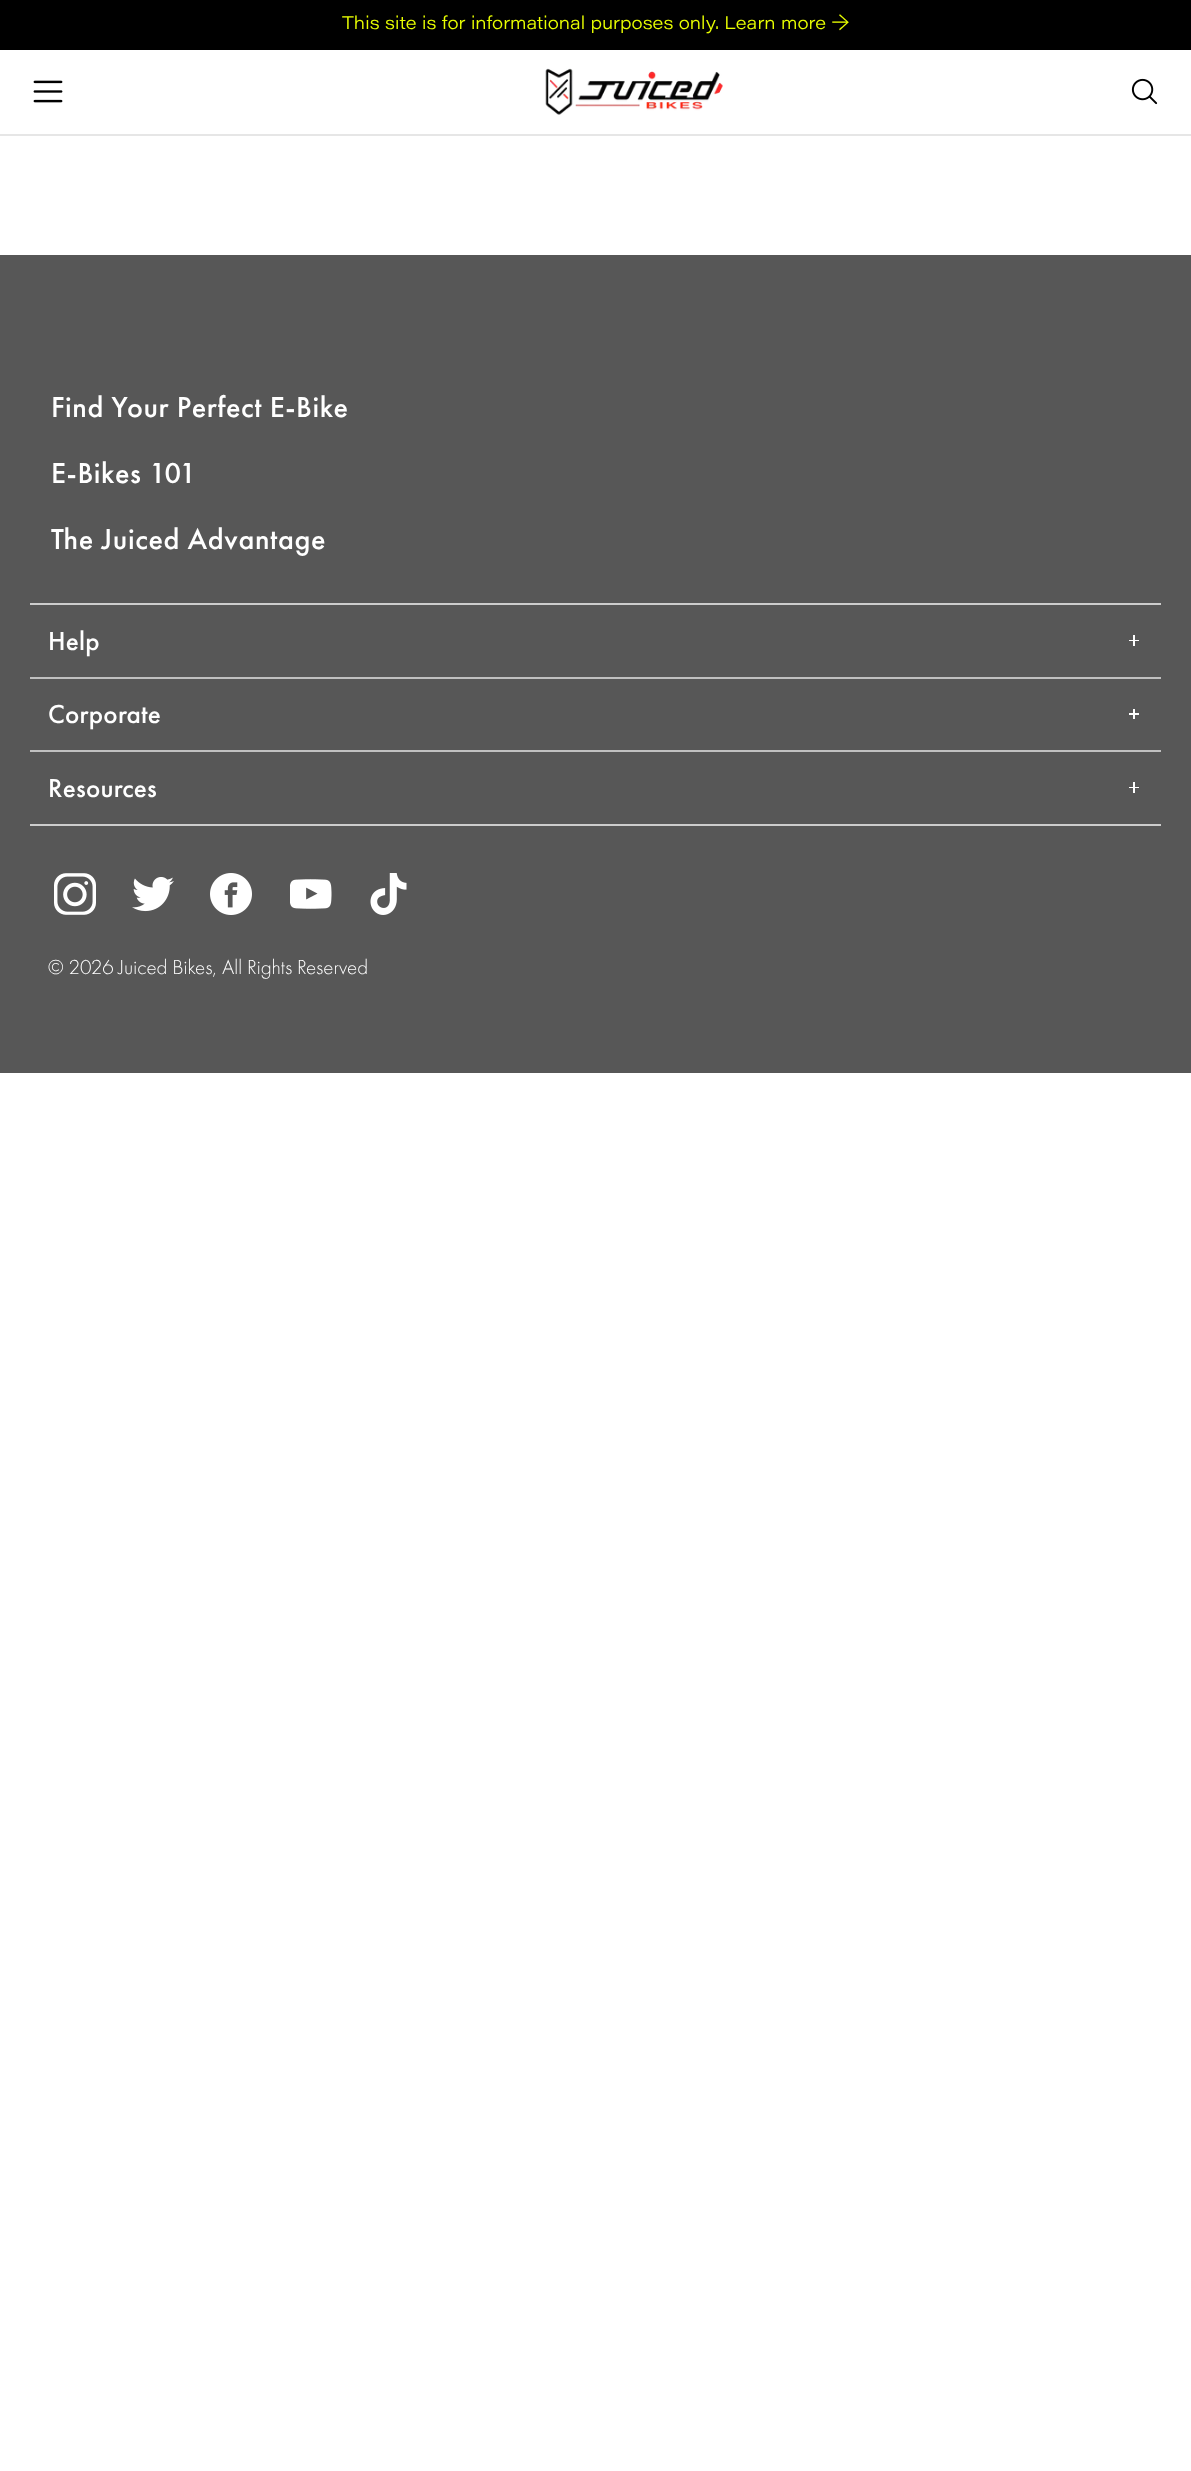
<svg xmlns="http://www.w3.org/2000/svg" xmlns:xlink="http://www.w3.org/1999/xlink" width="1191" height="2471" viewBox="0 0 1191 2471">
<style>
.cls-1{font:300 18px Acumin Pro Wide;fill:#e9ff00}
.cls-2{font:500 30px Futura PT;letter-spacing:0.6px;fill:#ffffff}
.cls-3{font:500 27px Futura PT;letter-spacing:0.25px;fill:#ffffff}
.cls-4{font:300 21px Futura PT;fill:#ffffff}
</style>
<rect width="100%" height="100%" fill="#ffffff"/>
<rect fill="#000000" x="0" y="0" width="1191" height="50"/>
<rect fill="#e6e6e6" x="0" y="134" width="1191" height="2"/>
<image xlink:href="image0.png" x="33" y="80" width="30" height="23"/>
<image xlink:href="image1.png" x="545" y="68" width="178" height="47"/>
<image xlink:href="image2.png" x="1131" y="78" width="27" height="27"/>
<rect fill="#575757" x="0" y="255" width="1191" height="818"/>
<rect fill="#cdcdcd" x="30" y="603" width="1131" height="2"/>
<rect fill="#cdcdcd" x="30" y="824" width="1131" height="2"/>
<rect fill="#ffffff" x="1129" y="640" width="10" height="1"/>
<rect fill="#ffffff" x="1133" y="635" width="2" height="11"/>
<rect fill="#c0c0c0" x="30" y="677" width="1131" height="2"/>
<rect fill="#ffffff" x="1129" y="713" width="10" height="2"/>
<rect fill="#ffffff" x="1133" y="709" width="2" height="10"/>
<rect fill="#c0c0c0" x="30" y="750" width="1131" height="2"/>
<rect fill="#ffffff" x="1129" y="787" width="10" height="1"/>
<rect fill="#ffffff" x="1133" y="782" width="2" height="11"/>
<image xlink:href="image3.png" x="54" y="873" width="42" height="42"/>
<image xlink:href="image4.png" x="132" y="877" width="42" height="35"/>
<image xlink:href="image5.png" x="210" y="873" width="42" height="42"/>
<image xlink:href="image6.png" x="290" y="879" width="42" height="30"/>
<image xlink:href="image7.png" x="370" y="873" width="37" height="42"/>
<text class="cls-1" x="342" y="29">This site is for informational purposes only. Learn more →</text>
<text class="cls-2" x="51" y="417">Find Your Perfect E-Bike</text>
<text class="cls-2" x="51" y="483">E-Bikes 101</text>
<text class="cls-2" x="51" y="549">The Juiced Advantage</text>
<text class="cls-3" x="48" y="650">Help</text>
<text class="cls-3" x="48" y="723">Corporate</text>
<text class="cls-3" x="48" y="797">Resources</text>
<text class="cls-4" x="48" y="974">© 2026 Juiced Bikes, All Rights Reserved</text>
</svg>
